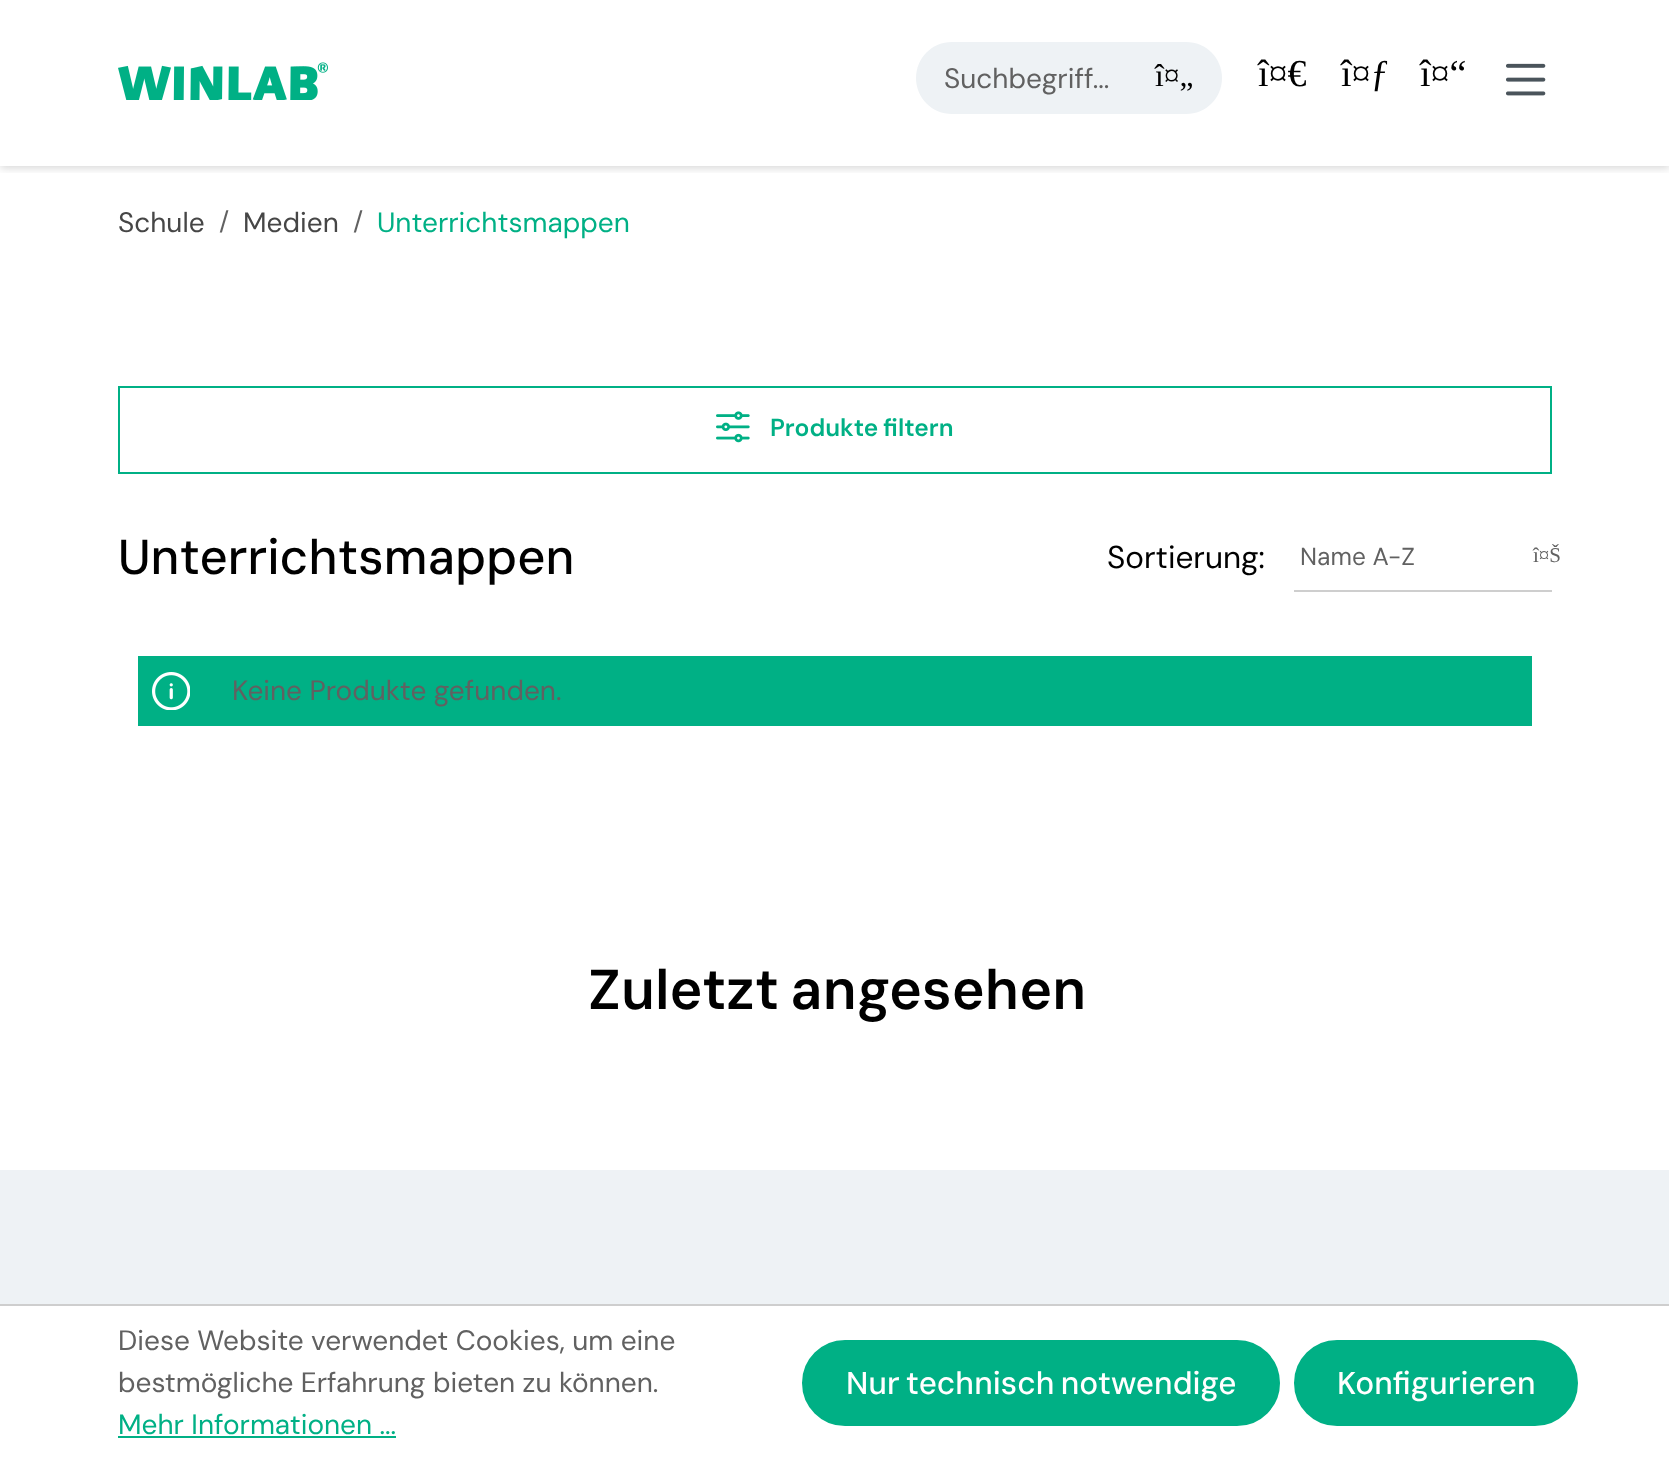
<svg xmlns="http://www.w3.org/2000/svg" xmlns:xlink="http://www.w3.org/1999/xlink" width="1669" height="1460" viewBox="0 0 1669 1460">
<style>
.cls-1{font:28px DM Sans;fill:#616161}
.cls-2{font:31.5px Liberation Serif;fill:#000000}
.cls-3{font:38px Liberation Serif;fill:#000000}
.cls-4{font:28px DM Sans;fill:#464646}
.cls-5{font:26px 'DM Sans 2';fill:#616161}
.cls-6{font:28px DM Sans;fill:#00b085}
.cls-7{font:600 24.5px DM Sans;fill:#00b085}
.cls-8{font:500 49px DM Sans;fill:#000000}
.cls-9{font:31.5px 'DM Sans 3';fill:#000000}
.cls-10{font:24.5px 'DM Sans 2';fill:#616161}
.cls-11{font:21px Liberation Serif;fill:#616161}
.cls-12{font:600 56px 'DM Sans 2';fill:#000000}
.cls-13{font:500 31.5px DM Sans;fill:#ffffff}
</style>
<defs>
<clipPath id="clip1"><rect x="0" y="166" width="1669" height="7"/></clipPath>
</defs>
<rect width="100%" height="100%" fill="#ffffff"/>
<g clip-path="url(#clip1)">
<rect fill="#000000" fill-opacity="0.16" filter="blur(4px)" x="0" y="2" width="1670" height="166"/>
</g>
<image xlink:href="image0.png" x="118" y="62" width="210" height="38"/>
<path fill="#eef2f5" d="M952 42H1154V114H952C932 114 916 98 916 78C916 58 932 42 952 42Z"/>
<path fill="#eef2f5" d="M1152 42H1186C1206 42 1222 58 1222 78C1222 98 1206 114 1186 114H1152Z"/>
<image xlink:href="image1.png" x="1506" y="63" width="40" height="33"/>
<rect fill="none" stroke="#00b085" stroke-width="2" x="119" y="387" width="1432" height="86"/>
<image xlink:href="image2.png" x="716" y="411" width="34" height="32"/>
<rect fill="#cecece" x="1294" y="590" width="258" height="2"/>
<rect fill="#00b085" x="138" y="656" width="1394" height="70"/>
<image xlink:href="image3.png" x="152" y="672" width="38" height="38"/>
<rect fill="#eef2f5" x="0" y="1170" width="1669" height="134"/>
<rect fill="#cecece" x="0" y="1304" width="1669" height="2"/>
<rect fill="#00b085" x="118" y="1436" width="278" height="2"/>
<rect fill="#00b085" stroke="#00b085" stroke-width="2" x="803" y="1341" width="476" height="84" rx="42"/>
<rect fill="#00b085" stroke="#00b085" stroke-width="2" x="1295" y="1341" width="282" height="84" rx="42"/>
<text class="cls-1" x="944" y="88">Suchbegriff...</text>
<text class="cls-2" x="1155" y="86">î¤„</text>
<text class="cls-3" x="1258" y="86">î¤€</text>
<text class="cls-3" x="1341" y="86">î¤ƒ</text>
<text class="cls-3" x="1420" y="86">î¤“</text>
<text class="cls-4" x="118" y="232">Schule</text>
<text class="cls-5" x="219" y="230">/</text>
<text class="cls-4" x="243" y="232">Medien</text>
<text class="cls-5" x="353" y="230">/</text>
<text class="cls-6" x="377" y="232">Unterrichtsmappen</text>
<text class="cls-7" x="770" y="436" word-spacing="-1">Produkte filtern</text>
<text class="cls-8" x="118" y="574">Unterrichtsmappen</text>
<text class="cls-9" x="1107" y="568">Sortierung:</text>
<text class="cls-10" x="1300" y="565">Name A-Z</text>
<text class="cls-11" x="1533" y="562">î¤Š</text>
<text class="cls-1" x="232" y="700">Keine Produkte gefunden.</text>
<text class="cls-12" x="588" y="1009" word-spacing="-3">Zuletzt angesehen</text>
<text class="cls-1"><tspan x="118" y="1350">Diese Website verwendet Cookies, um eine</tspan><tspan x="118" y="1392">bestmögliche Erfahrung bieten zu können.</tspan></text>
<text class="cls-6" x="118" y="1434">Mehr Informationen ...</text>
<text class="cls-13" x="846" y="1394" word-spacing="-2">Nur technisch notwendige</text>
<text class="cls-13" x="1337" y="1394">Konfigurieren</text>
</svg>
